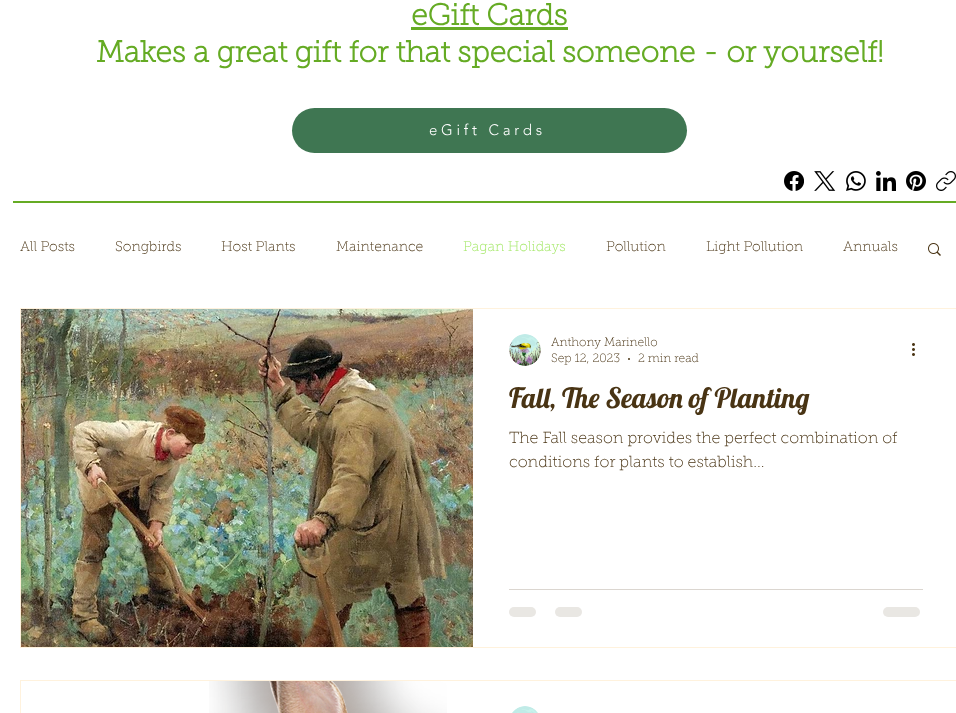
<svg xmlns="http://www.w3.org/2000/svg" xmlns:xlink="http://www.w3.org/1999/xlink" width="956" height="713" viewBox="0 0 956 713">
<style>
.cls-1{font:bold 30px 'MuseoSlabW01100';fill:#65ab24}
.cls-2{font:300 15px 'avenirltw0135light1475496';letter-spacing:3.75px;fill:#ffffff}
.cls-3{font:100 14px 'MuseoSlabW01100';fill:#493414}
.cls-4{font:100 14px 'MuseoSlabW01100';fill:#a1e763}
.cls-5{font:100 12px 'MuseoSlabW01100';fill:#493414}
.cls-6{font:28px Lobster;fill:#493414}
.cls-7{font:100 16px 'MuseoSlabW01100';fill:#493414}
</style>
<rect width="100%" height="100%" fill="#ffffff"/>
<rect fill="#65ab24" x="411" y="27" width="157" height="3"/>
<rect fill="#3f7652" x="292" y="108" width="395" height="45" rx="22.5"/>
<image xlink:href="image0.png" x="784" y="171" width="20" height="20"/>
<image xlink:href="image1.png" x="814" y="171" width="22" height="20"/>
<image xlink:href="image2.png" x="846" y="171" width="20" height="20"/>
<image xlink:href="image3.png" x="876" y="171" width="20" height="20"/>
<image xlink:href="image4.png" x="906" y="171" width="20" height="20"/>
<image xlink:href="image5.png" x="936" y="171" width="20" height="20"/>
<rect fill="#65ab24" x="13" y="201" width="943" height="2"/>
<image xlink:href="image6.png" x="928" y="243" width="13" height="13"/>
<rect fill="none" stroke="#fff2dd" x="20.5" y="308.5" width="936" height="339"/>
<image xlink:href="image7.png" x="21" y="309" width="452" height="338"/>
<image xlink:href="image8.png" x="509" y="334" width="32" height="32"/>
<circle fill="#493414" cx="629" cy="359" r="1"/>
<image xlink:href="image9.png" x="912" y="343" width="3" height="13"/>
<rect fill="#dbd6d0" x="509" y="589" width="414" height="1"/>
<rect fill="#e9e7e3" x="509" y="607" width="27" height="10" rx="5"/>
<rect fill="#e9e7e3" x="555" y="607" width="27" height="10" rx="5"/>
<rect fill="#e9e7e3" x="883" y="607" width="37" height="10" rx="5"/>
<rect fill="none" stroke="#fff2dd" x="20.5" y="680.5" width="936" height="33"/>
<image xlink:href="image10.png" x="209" y="681" width="238" height="32"/>
<image xlink:href="image11.png" x="269" y="681" width="79" height="32"/>
<image xlink:href="image12.png" x="512" y="706" width="26" height="7"/>
<text class="cls-1" x="411" y="25">eGift Cards</text>
<text class="cls-1" x="96" y="62">Makes a great gift for that special someone - or yourself!</text>
<text class="cls-2" x="429" y="135">eGift Cards</text>
<text class="cls-3" x="20" y="251">All Posts</text>
<text class="cls-3" x="115" y="251">Songbirds</text>
<text class="cls-3" x="221" y="251">Host Plants</text>
<text class="cls-3" x="336" y="251">Maintenance</text>
<text class="cls-4" x="463" y="251">Pagan Holidays</text>
<text class="cls-3" x="606" y="251">Pollution</text>
<text class="cls-3" x="706" y="251">Light Pollution</text>
<text class="cls-3" x="843" y="251">Annuals</text>
<text class="cls-5"><tspan x="551" y="346">Anthony Marinello</tspan><tspan x="551" y="362">Sep 12, 2023</tspan></text>
<text class="cls-5" x="638" y="362">2 min read</text>
<text class="cls-6" x="509" y="408">Fall, The Season of Planting</text>
<text class="cls-7"><tspan x="509" y="443">The Fall season provides the perfect combination of</tspan><tspan x="509" y="467">conditions for plants to establish...</tspan></text>
</svg>
